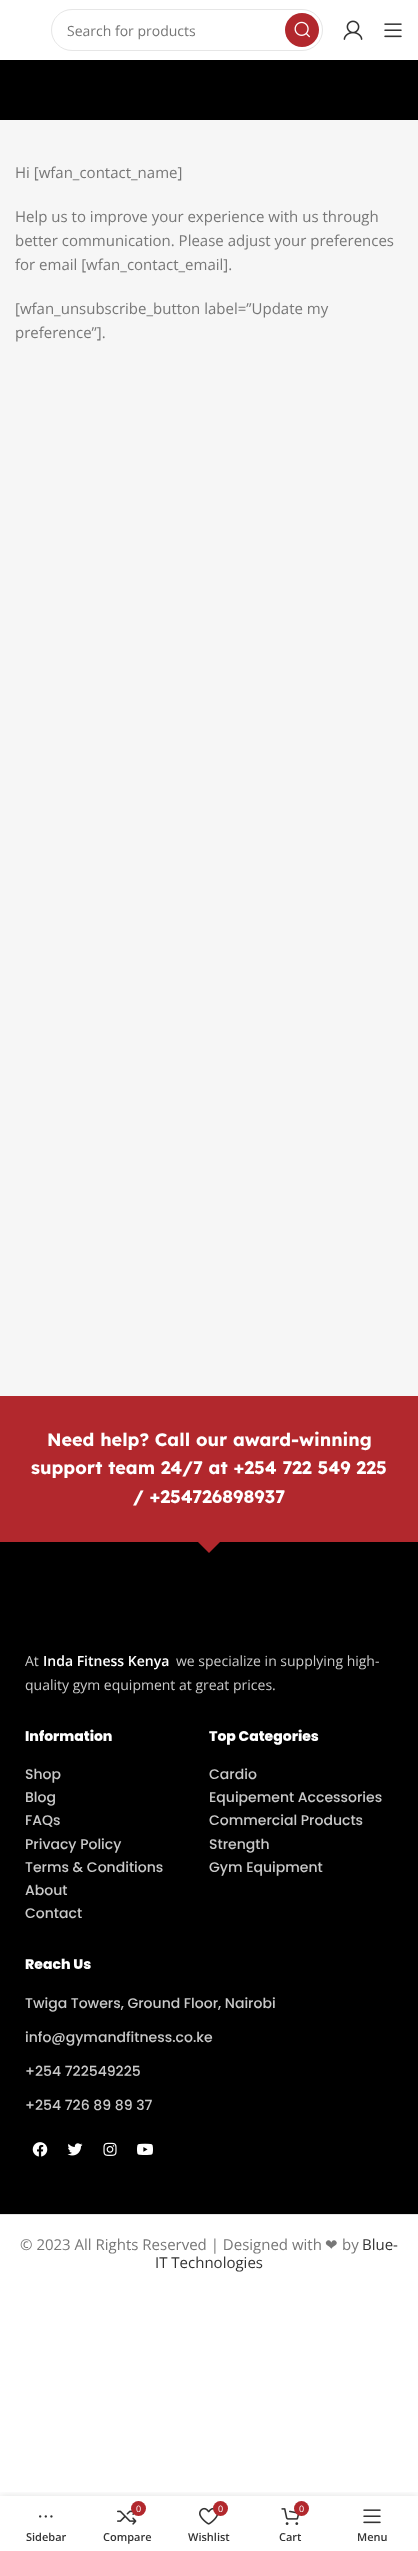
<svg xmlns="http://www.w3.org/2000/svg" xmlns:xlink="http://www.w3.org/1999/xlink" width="418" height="2551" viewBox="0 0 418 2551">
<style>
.cls-1{font:14px Open Sans;fill:#777777}
.cls-2{font:15px Open Sans;fill:#777777}
.cls-3{font:bold 18px Lexend Deca;fill:#ffffff}
.cls-4{font:14px Open Sans;fill:#c9c9c9}
.cls-5{font:600 14px Open Sans;fill:#ffffff}
.cls-6{font:800 14px Poppins;fill:#ffffff}
.cls-7{font:500 14px Poppins;fill:#c9c9c9}
.cls-8{font:15px DejaVu Sans;fill:#777777}
.cls-9{font:15px Open Sans;fill:#333333}
.cls-10{font:600 11px Open Sans;fill:#333333}
.cls-11{font:9px Open Sans;fill:#ffffff}
</style>
<defs>
<clipPath id="clip1"><rect x="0" y="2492" width="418" height="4"/></clipPath>
</defs>
<rect width="100%" height="100%" fill="#ffffff"/>
<rect fill="none" stroke="#e6e6e6" x="51.5" y="9.5" width="271" height="41" rx="20.5"/>
<circle fill="#b2282d" cx="302" cy="30" r="17"/>
<image xlink:href="image0.png" x="294" y="21" width="16" height="17"/>
<image xlink:href="image1.png" x="343" y="20" width="20" height="20"/>
<image xlink:href="image2.png" x="384" y="23" width="18" height="15"/>
<rect fill="#000000" x="0" y="60" width="418" height="60"/>
<rect fill="#f6f6f6" x="0" y="120" width="418" height="1276"/>
<rect fill="#b2282d" x="0" y="1396" width="418" height="146"/>
<rect fill="#000000" x="0" y="1542" width="418" height="672"/>
<path fill="#b2282d" d="M209 1553L197 1541H221Z"/>
<image xlink:href="image3.png" x="32" y="2142" width="16" height="15"/>
<image xlink:href="image4.png" x="67" y="2143" width="16" height="13"/>
<image xlink:href="image5.png" x="103" y="2142" width="14" height="14"/>
<image xlink:href="image6.png" x="137" y="2143" width="16" height="12"/>
<rect fill="#e4e4e4" x="0" y="2214" width="418" height="1"/>
<g clip-path="url(#clip1)">
<rect fill="#000000" fill-opacity="0.12" filter="blur(4.5px)" x="0" y="2496" width="418" height="55"/>
</g>
<image xlink:href="image7.png" x="39" y="2515" width="14" height="3"/>
<image xlink:href="image8.png" x="117" y="2510" width="20" height="15"/>
<circle fill="#b2282d" cx="138.5" cy="2508.5" r="7.5"/>
<image xlink:href="image9.png" x="199" y="2507" width="20" height="18"/>
<circle fill="#b2282d" cx="220.5" cy="2508.5" r="7.5"/>
<image xlink:href="image10.png" x="281" y="2508" width="19" height="17"/>
<circle fill="#b2282d" cx="301.5" cy="2508.5" r="7.5"/>
<image xlink:href="image2.png" x="363" y="2509" width="18" height="15"/>
<text class="cls-1" x="67" y="36">Search for products</text>
<text class="cls-2" x="15" y="178">Hi [wfan_contact_name]</text>
<text class="cls-2"><tspan x="15" y="222">Help us to improve your experience with us through</tspan><tspan x="15" y="246">better communication. Please adjust your preferences</tspan><tspan x="15" y="270">for email [wfan_contact_email].</tspan></text>
<text class="cls-2"><tspan x="15" y="314">[wfan_unsubscribe_button label=”Update my</tspan><tspan x="15" y="338">preference”].</tspan></text>
<text class="cls-3" x="47" y="1446">Need help? Call our award-winning</text>
<text class="cls-3" x="31" y="1474">support team 24/7 at +254 722 549 225</text>
<text class="cls-3" x="133" y="1503">/ +254726898937</text>
<text class="cls-4" x="25" y="1666">At</text>
<text class="cls-5" x="43" y="1666">Inda Fitness Kenya</text>
<text class="cls-4" x="176" y="1666">we specialize in supplying high-</text>
<text class="cls-4" x="25" y="1690">quality gym equipment at great prices.</text>
<text class="cls-6" x="25" y="1741">Information</text>
<text class="cls-7"><tspan x="25" y="1779">Shop</tspan><tspan x="25" y="1802">Blog</tspan><tspan x="25" y="1825">FAQs</tspan><tspan x="25" y="1849">Privacy Policy</tspan><tspan x="25" y="1872">Terms &amp; Conditions</tspan><tspan x="25" y="1895">About</tspan><tspan x="25" y="1918">Contact</tspan></text>
<text class="cls-6" x="209" y="1741">Top Categories</text>
<text class="cls-7"><tspan x="209" y="1779">Cardio</tspan><tspan x="209" y="1802">Equipement Accessories</tspan><tspan x="209" y="1825">Commercial Products</tspan><tspan x="209" y="1849">Strength</tspan><tspan x="209" y="1872">Gym Equipment</tspan></text>
<text class="cls-6" x="25" y="1969">Reach Us</text>
<text class="cls-7" x="25" y="2008">Twiga Towers, Ground Floor, Nairobi</text>
<text class="cls-7" x="25" y="2042">info@gymandfitness.co.ke</text>
<text class="cls-7" x="25" y="2076">+254 722549225</text>
<text class="cls-7" x="25" y="2110">+254 726 89 89 37</text>
<text class="cls-2" x="20" y="2250">© 2023 All Rights Reserved | Designed with</text>
<text class="cls-8" x="325" y="2250">❤</text>
<text class="cls-2" x="342" y="2250">by</text>
<text class="cls-9" x="362" y="2250">Blue-</text>
<text class="cls-9" x="155" y="2268">IT Technologies</text>
<text class="cls-10" x="26" y="2541">Sidebar</text>
<text class="cls-11" x="136" y="2512">0</text>
<text class="cls-10" x="103" y="2541">Compare</text>
<text class="cls-11" x="218" y="2512">0</text>
<text class="cls-10" x="188" y="2541">Wishlist</text>
<text class="cls-11" x="299" y="2512">0</text>
<text class="cls-10" x="279" y="2541">Cart</text>
<text class="cls-10" x="357" y="2541">Menu</text>
</svg>
